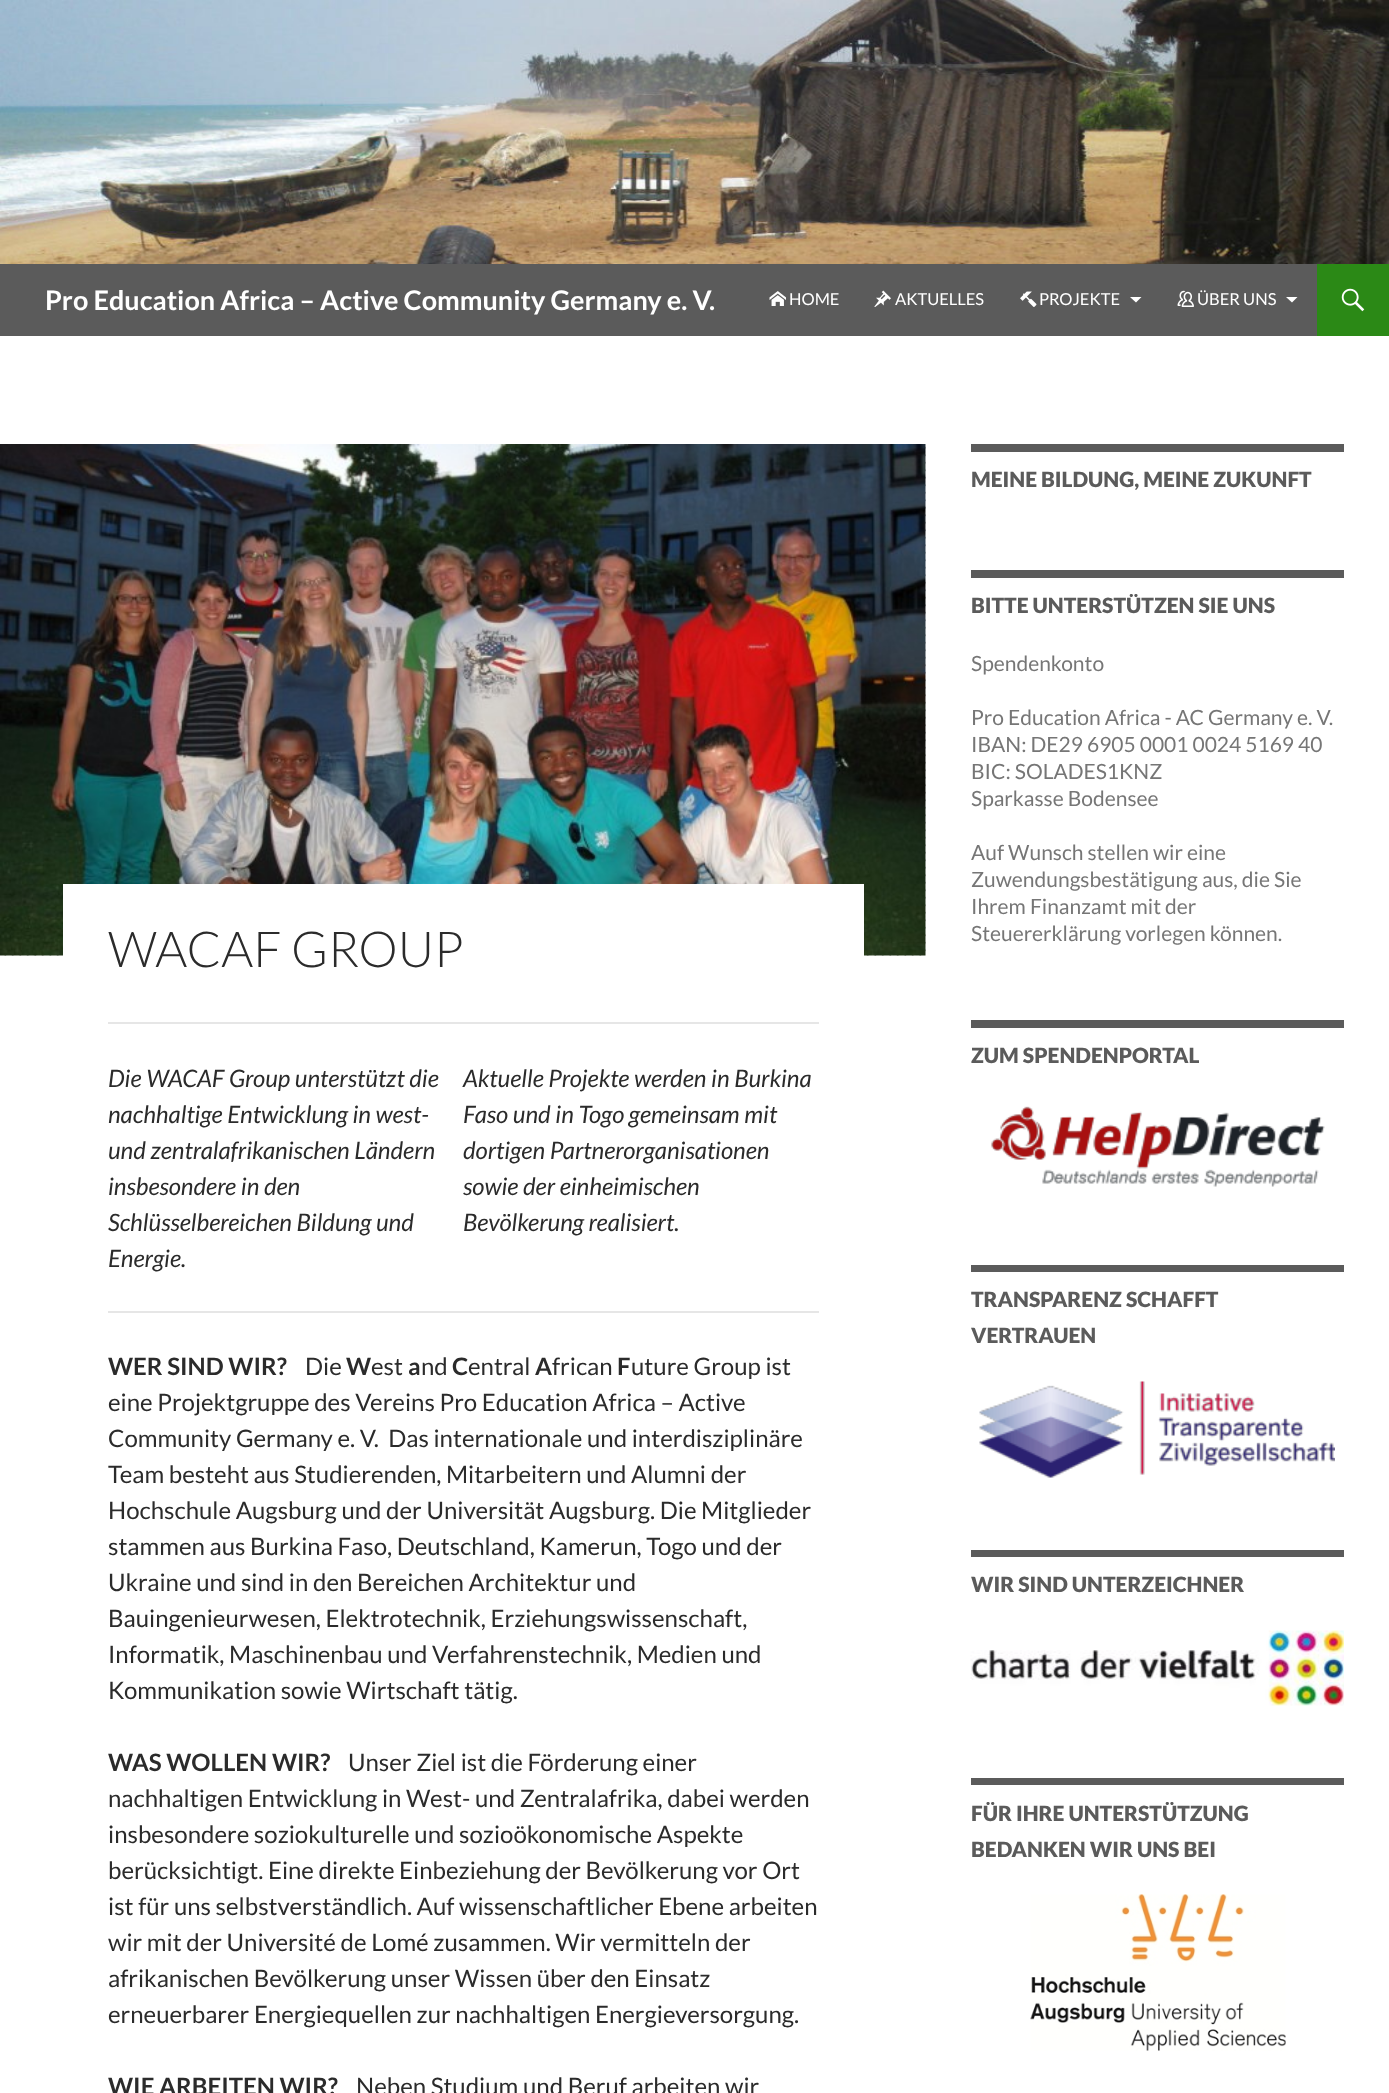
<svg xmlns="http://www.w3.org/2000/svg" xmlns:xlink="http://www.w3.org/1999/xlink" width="1389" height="2093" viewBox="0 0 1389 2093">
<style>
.cls-1{font:bold 27px Lato;fill:#ffffff}
.cls-2{font:16.5px Lato;fill:#ffffff}
.cls-3{font:300 49.5px Lato;fill:#2b2b2b}
.cls-4{font:italic 24px Lato;fill:#2b2b2b}
.cls-5{font:bold 24px Lato;fill:#2b2b2b}
.cls-6{font:24px Lato;fill:#2b2b2b}
.cls-7{font:900 21px Lato;fill:#5b5b5b}
.cls-8{font:21px Lato;fill:#767676}
</style>
<rect width="100%" height="100%" fill="#ffffff"/>
<image xlink:href="image0.png" x="0" y="0" width="1389" height="264"/>
<rect fill="#5b5b5b" x="0" y="264" width="1317" height="72"/>
<image xlink:href="image1.png" x="769" y="291" width="17" height="15"/>
<image xlink:href="image2.png" x="874" y="290" width="17" height="17"/>
<image xlink:href="image3.png" x="1020" y="291" width="17" height="16"/>
<path fill="#ffffff" d="M1130 297H1141.5L1136 302.5Z"/>
<image xlink:href="image4.png" x="1177" y="290" width="17" height="17"/>
<path fill="#ffffff" d="M1286 297H1297.5L1292 302.5Z"/>
<rect fill="#2b8916" x="1317" y="264" width="72" height="72"/>
<image xlink:href="image5.png" x="1341" y="288" width="24" height="24"/>
<rect fill="#b2b2b2" x="4" y="446" width="922" height="510"/>
<image xlink:href="image6.png" x="0" y="444" width="926" height="512"/>
<image xlink:href="image7.png" x="0" y="444" width="926" height="512"/>
<rect fill="#ffffff" x="63" y="884" width="801" height="72"/>
<rect fill="#e6e6e6" x="108" y="1022" width="711" height="2"/>
<rect fill="#e6e6e6" x="108" y="1311" width="711" height="2"/>
<rect fill="#5b5b5b" x="971" y="444" width="373" height="8"/>
<rect fill="#5b5b5b" x="971" y="570" width="373" height="8"/>
<rect fill="#5b5b5b" x="971" y="1020" width="373" height="8"/>
<image xlink:href="image8.png" x="991" y="1106" width="334" height="81"/>
<rect fill="#5b5b5b" x="971" y="1265" width="373" height="7"/>
<image xlink:href="image9.png" x="979" y="1381" width="356" height="97"/>
<rect fill="#5b5b5b" x="971" y="1550" width="373" height="7"/>
<image xlink:href="image10.png" x="970" y="1630" width="374" height="76"/>
<rect fill="#5b5b5b" x="971" y="1778" width="373" height="7"/>
<image xlink:href="image11.png" x="1030" y="1894" width="256" height="157"/>
<text class="cls-1" x="45" y="310">Pro Education Africa – Active Community Germany e. V.</text>
<text class="cls-2" x="789" y="305">HOME</text>
<text class="cls-2" x="895" y="305">AKTUELLES</text>
<text class="cls-2" x="1039" y="305">PROJEKTE</text>
<text class="cls-2" x="1197" y="305">ÜBER UNS</text>
<text class="cls-3" x="108" y="967">WACAF GROUP</text>
<text class="cls-4"><tspan x="108" y="1087">Die WACAF Group unterstützt die</tspan><tspan x="108" y="1123">nachhaltige Entwicklung in west-</tspan><tspan x="108" y="1159">und zentralafrikanischen Ländern</tspan><tspan x="108" y="1195">insbesondere in den</tspan><tspan x="108" y="1231">Schlüsselbereichen Bildung und</tspan><tspan x="108" y="1267">Energie.</tspan></text>
<text class="cls-4"><tspan x="463" y="1087">Aktuelle Projekte werden in Burkina</tspan><tspan x="463" y="1123">Faso und in Togo gemeinsam mit</tspan><tspan x="463" y="1159">dortigen Partnerorganisationen</tspan><tspan x="463" y="1195">sowie der einheimischen</tspan><tspan x="463" y="1231">Bevölkerung realisiert.</tspan></text>
<text class="cls-5" x="108" y="1375">WER SIND WIR?</text>
<text class="cls-6" x="305" y="1375">Die</text>
<text class="cls-5" x="346" y="1375">W</text>
<text class="cls-6" x="371" y="1375">est</text>
<text class="cls-5" x="408" y="1375">a</text>
<text class="cls-6" x="421" y="1375">nd</text>
<text class="cls-5" x="452" y="1375">C</text>
<text class="cls-6" x="468" y="1375">entral</text>
<text class="cls-5" x="535" y="1375">A</text>
<text class="cls-6" x="552" y="1375">frican</text>
<text class="cls-5" x="617" y="1375">F</text>
<text class="cls-6" x="631" y="1375">uture Group ist</text>
<text class="cls-6" xml:space="preserve"><tspan x="108" y="1411">eine Projektgruppe des Vereins Pro Education Africa – Active</tspan><tspan x="108" y="1447">Community Germany e. V.  Das internationale und interdisziplinäre</tspan><tspan x="108" y="1483">Team besteht aus Studierenden, Mitarbeitern und Alumni der</tspan><tspan x="108" y="1519">Hochschule Augsburg und der Universität Augsburg. Die Mitglieder</tspan><tspan x="108" y="1555">stammen aus Burkina Faso, Deutschland, Kamerun, Togo und der</tspan><tspan x="108" y="1591">Ukraine und sind in den Bereichen Architektur und</tspan><tspan x="108" y="1627">Bauingenieurwesen, Elektrotechnik, Erziehungswissenschaft,</tspan><tspan x="108" y="1663">Informatik, Maschinenbau und Verfahrenstechnik, Medien und</tspan><tspan x="108" y="1699">Kommunikation sowie Wirtschaft tätig.</tspan></text>
<text class="cls-5" x="108" y="1771">WAS WOLLEN WIR?</text>
<text class="cls-6" x="348" y="1771">Unser Ziel ist die Förderung einer</text>
<text class="cls-6"><tspan x="108" y="1807">nachhaltigen Entwicklung in West- und Zentralafrika, dabei werden</tspan><tspan x="108" y="1843">insbesondere soziokulturelle und sozioökonomische Aspekte</tspan><tspan x="108" y="1879">berücksichtigt. Eine direkte Einbeziehung der Bevölkerung vor Ort</tspan><tspan x="108" y="1915">ist für uns selbstverständlich. Auf wissenschaftlicher Ebene arbeiten</tspan><tspan x="108" y="1951">wir mit der Université de Lomé zusammen. Wir vermitteln der</tspan><tspan x="108" y="1987">afrikanischen Bevölkerung unser Wissen über den Einsatz</tspan><tspan x="108" y="2023">erneuerbarer Energiequellen zur nachhaltigen Energieversorgung.</tspan></text>
<text class="cls-5" x="108" y="2095">WIE ARBEITEN WIR?</text>
<text class="cls-6" x="356" y="2095">Neben Studium und Beruf arbeiten wir</text>
<text class="cls-7" x="971" y="487">MEINE BILDUNG, MEINE ZUKUNFT</text>
<text class="cls-7" x="971" y="613">BITTE UNTERSTÜTZEN SIE UNS</text>
<text class="cls-8" x="971" y="671">Spendenkonto</text>
<text class="cls-8"><tspan x="971" y="725">Pro Education Africa - AC Germany e. V.</tspan><tspan x="971" y="752">IBAN: DE29 6905 0001 0024 5169 40</tspan><tspan x="971" y="779">BIC: SOLADES1KNZ</tspan><tspan x="971" y="806">Sparkasse Bodensee</tspan></text>
<text class="cls-8"><tspan x="971" y="860">Auf Wunsch stellen wir eine</tspan><tspan x="971" y="887">Zuwendungsbestätigung aus, die Sie</tspan><tspan x="971" y="914">Ihrem Finanzamt mit der</tspan><tspan x="971" y="941">Steuererklärung vorlegen können.</tspan></text>
<text class="cls-7" x="971" y="1063">ZUM SPENDENPORTAL</text>
<text class="cls-7"><tspan x="971" y="1307">TRANSPARENZ SCHAFFT</tspan><tspan x="971" y="1343">VERTRAUEN</tspan></text>
<text class="cls-7" x="971" y="1592">WIR SIND UNTERZEICHNER</text>
<text class="cls-7"><tspan x="971" y="1821">FÜR IHRE UNTERSTÜTZUNG</tspan><tspan x="971" y="1857">BEDANKEN WIR UNS BEI</tspan></text>
</svg>
